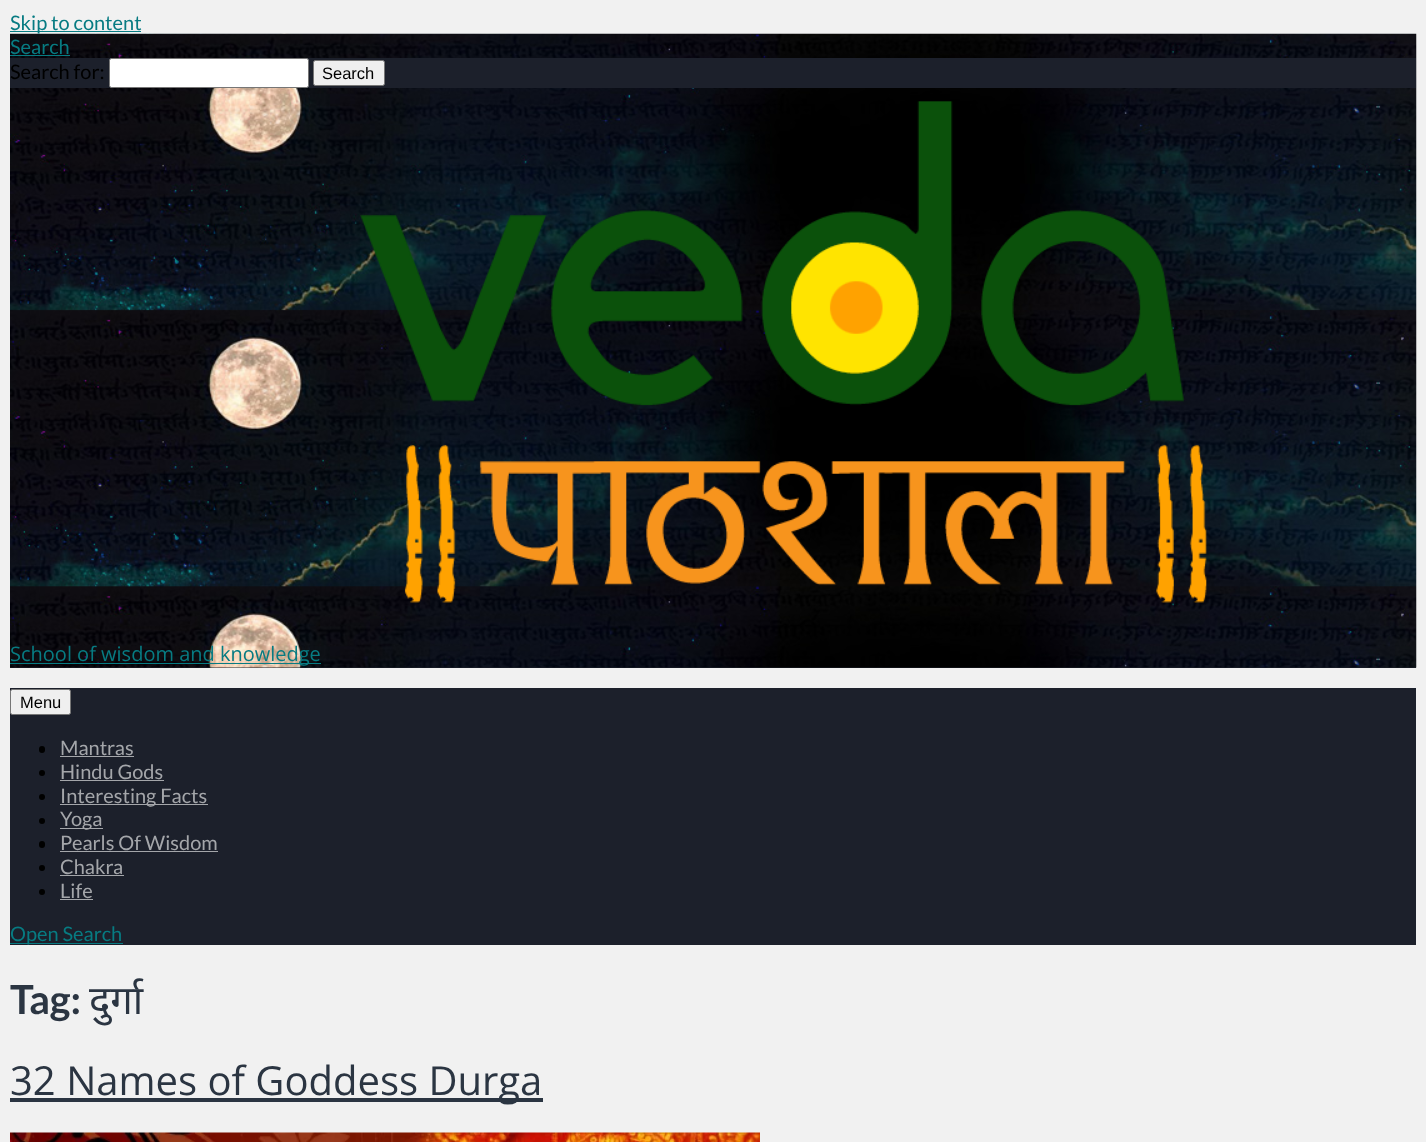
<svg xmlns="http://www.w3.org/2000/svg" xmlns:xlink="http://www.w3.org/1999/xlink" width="1426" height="1142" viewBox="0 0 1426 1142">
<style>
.cls-1{font:20px Lato;fill:#077b82}
.cls-2{font:20px Lato;fill:#000000}
.cls-3{font:16.5px Liberation Sans;fill:#000000}
.cls-4{font:20px Open Sans;fill:#077b82}
.cls-5{font:20px Lato;fill:#a4a6aa}
.cls-6{font:bold 40px Lato;fill:#2b3542}
.cls-7{font:40px Noto Sans;fill:#2b3542}
.cls-8{font:40px Open Sans;fill:#2b3542}
</style>
<rect width="100%" height="100%" fill="#f1f1f1"/>
<rect fill="#077b82" x="10" y="31" width="131" height="1"/>
<rect fill="#1c202b" x="10" y="667" width="1406" height="1"/>
<image xlink:href="image0.png" x="10" y="33" width="1407" height="635"/>
<rect fill="#077b82" x="10" y="55" width="60" height="1"/>
<rect fill="#1c202b" x="10" y="58" width="1406" height="30"/>
<rect fill="#ffffff" stroke="#767676" x="109.5" y="58.5" width="199" height="29" rx="2"/>
<rect fill="#efefef" stroke="#767676" x="313.5" y="60.5" width="71" height="25" rx="2"/>
<image xlink:href="image1.png" x="360" y="101" width="847" height="502"/>
<rect fill="#077b82" x="10" y="663" width="311" height="1"/>
<rect fill="#1c202b" x="10" y="688" width="1406" height="257"/>
<rect fill="#efefef" stroke="#767676" x="10.5" y="689.5" width="60" height="25" rx="2"/>
<rect fill="#000000" x="39" y="746" width="6" height="7" rx="3"/>
<rect fill="#a4a6aa" x="60" y="756" width="74" height="1"/>
<circle fill="#000000" cx="42" cy="773" r="3"/>
<rect fill="#a4a6aa" x="60" y="780" width="104" height="1"/>
<circle fill="#000000" cx="42" cy="797" r="3"/>
<rect fill="#a4a6aa" x="60" y="804" width="148" height="1"/>
<circle fill="#000000" cx="42" cy="821" r="3"/>
<rect fill="#a4a6aa" x="60" y="828" width="43" height="1"/>
<rect fill="#000000" x="39" y="841" width="6" height="7" rx="3"/>
<rect fill="#a4a6aa" x="60" y="851" width="158" height="1"/>
<circle fill="#000000" cx="42" cy="868" r="3"/>
<rect fill="#a4a6aa" x="60" y="875" width="64" height="1"/>
<circle fill="#000000" cx="42" cy="892" r="3"/>
<rect fill="#a4a6aa" x="60" y="899" width="33" height="1"/>
<rect fill="#077b82" x="10" y="943" width="113" height="1"/>
<rect fill="#2b3542" x="10" y="1098" width="533" height="4"/>
<image xlink:href="image2.png" x="10" y="1132" width="750" height="10"/>
<text class="cls-1"><tspan x="10" y="30">Skip to content</tspan><tspan x="10" y="54">Search</tspan></text>
<text class="cls-2" x="10" y="79">Search for:</text>
<text class="cls-3" x="322" y="79">Search</text>
<text class="cls-4" x="10" y="661">School of wisdom and knowledge</text>
<text class="cls-3" x="20" y="708">Menu</text>
<text class="cls-5"><tspan x="60" y="755">Mantras</tspan><tspan x="60" y="779">Hindu Gods</tspan><tspan x="60" y="803">Interesting Facts</tspan><tspan x="60" y="826">Yoga</tspan><tspan x="60" y="850">Pearls Of Wisdom</tspan><tspan x="60" y="874">Chakra</tspan><tspan x="60" y="898">Life</tspan></text>
<text class="cls-1" x="10" y="941">Open Search</text>
<text class="cls-6" x="10" y="1014">Tag:</text>
<text class="cls-7" x="89" y="1014">दुर्गा</text>
<text class="cls-8" x="10" y="1095">32 Names of Goddess Durga</text>
</svg>
